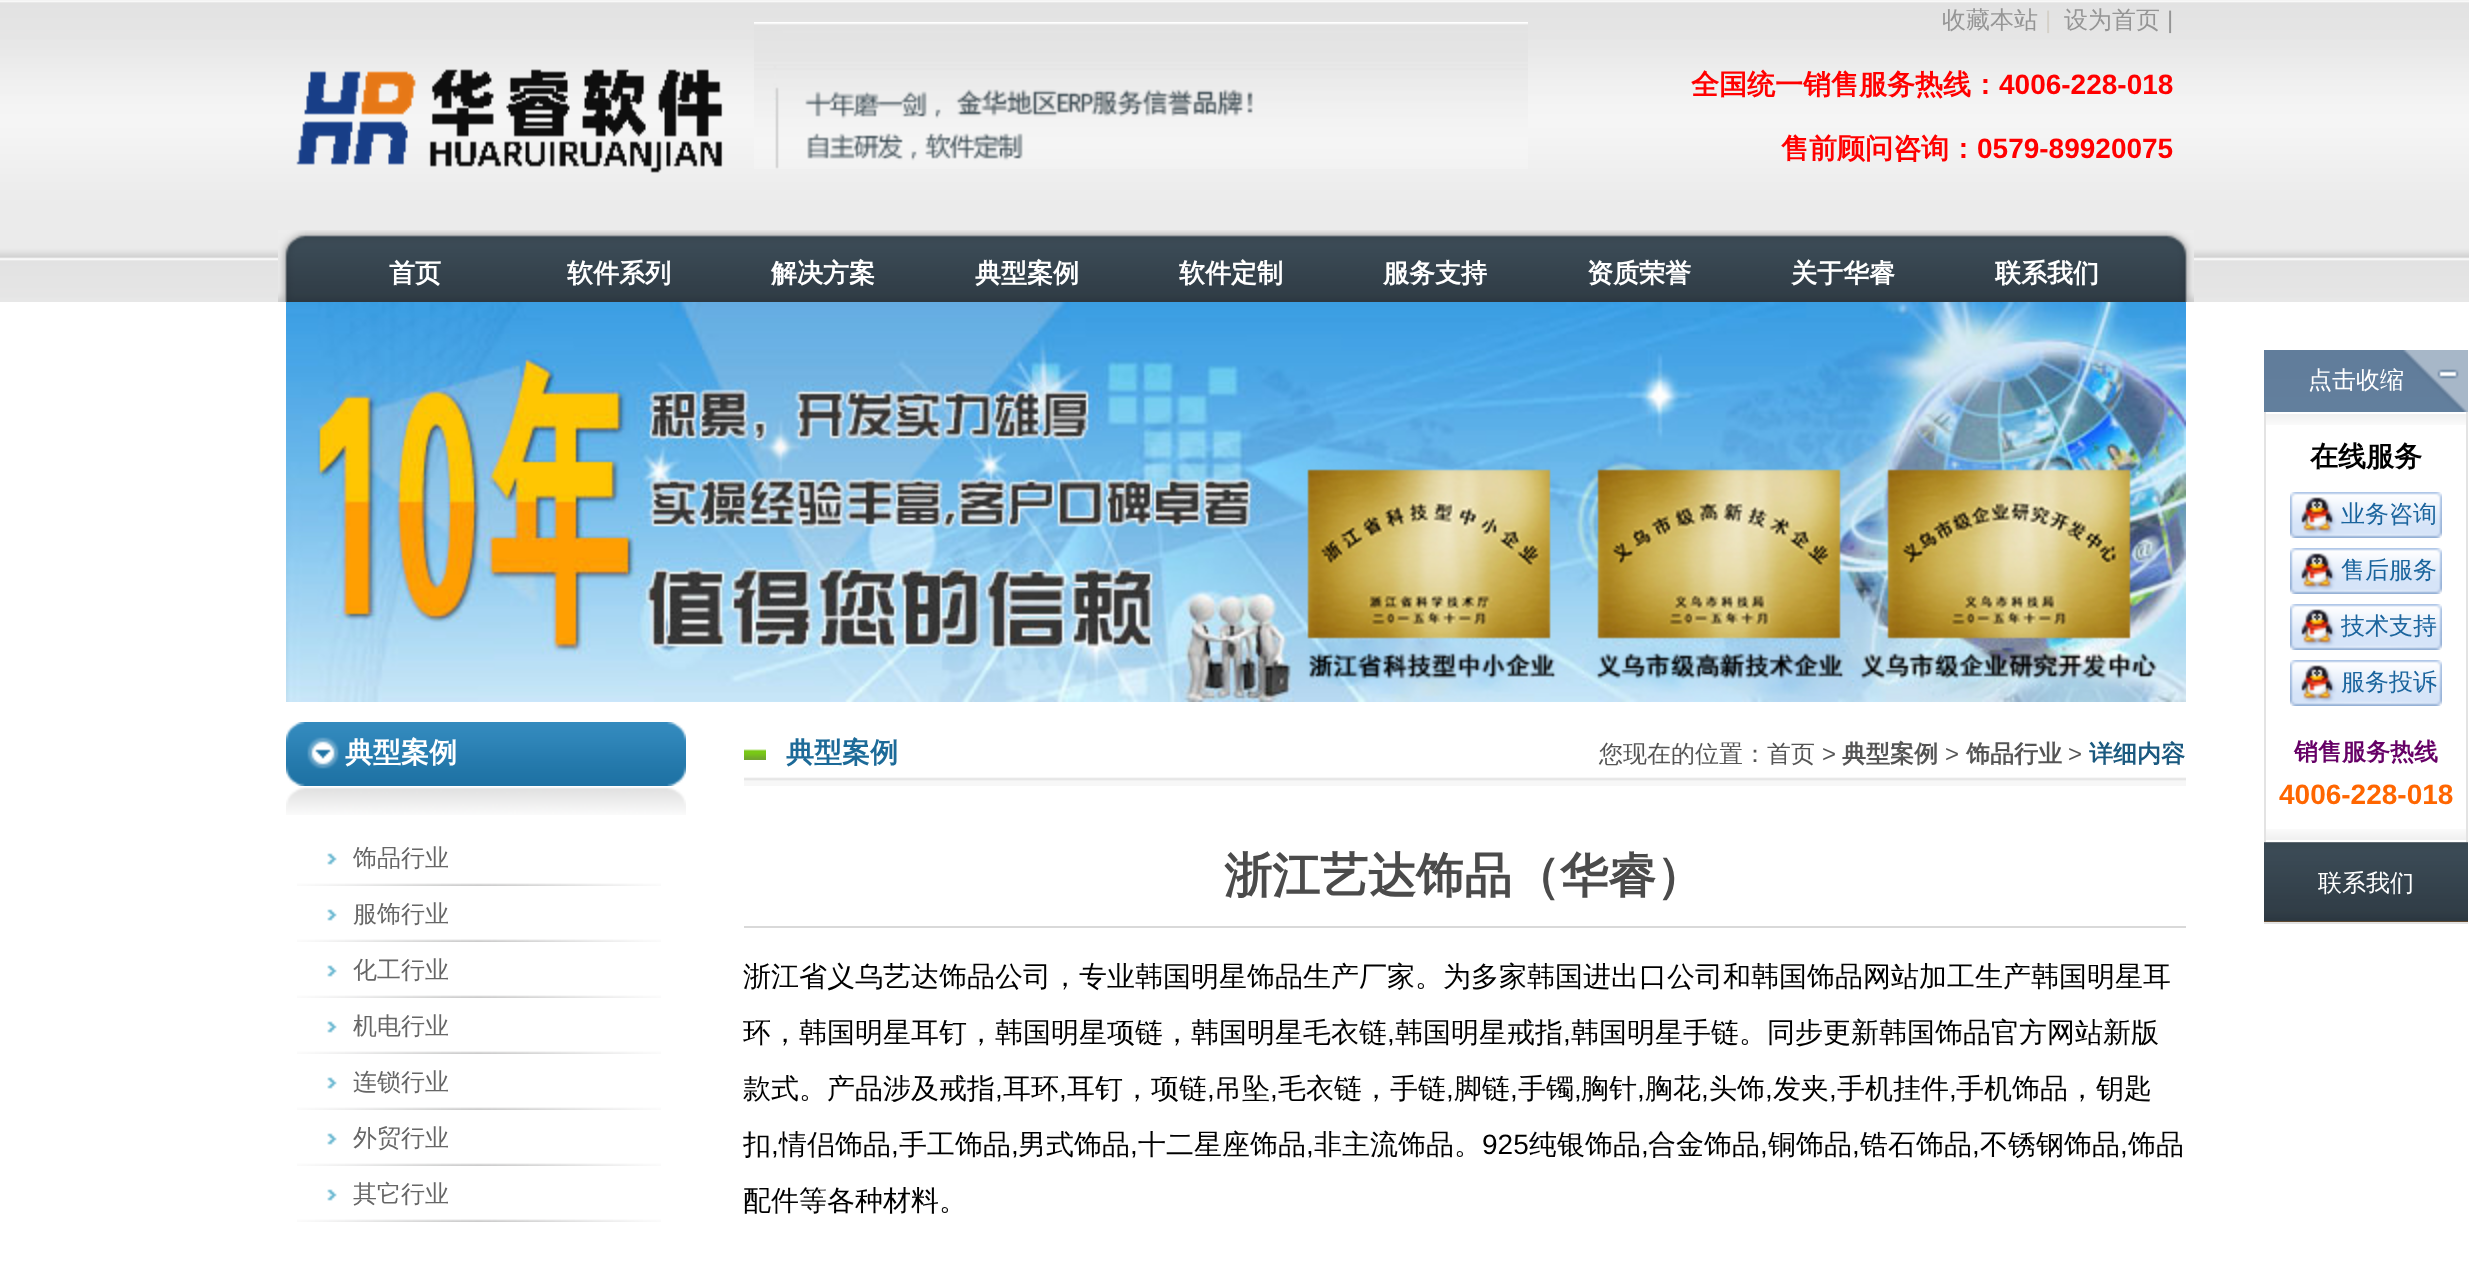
<svg xmlns="http://www.w3.org/2000/svg" xmlns:xlink="http://www.w3.org/1999/xlink" width="2469" height="1276" viewBox="0 0 2469 1276">
<style>
.cls-1{font:500 24px WenQuanYi Zen Hei;fill:#959595}
.cls-2{font:24px Liberation Sans;fill:#d4d0c8}
.cls-3{font:24px Liberation Sans;fill:#959595}
.cls-4{font:bold 28px WenQuanYi Zen Hei;fill:#ff0000}
.cls-5{font:bold 28px Liberation Sans;fill:#ff0000}
.cls-6{font:bold 26px WenQuanYi Zen Hei;fill:#ffffff}
.cls-7{font:500 24px WenQuanYi Zen Hei;fill:#ffffff}
.cls-8{font:bold 28px WenQuanYi Zen Hei;fill:#000000}
.cls-9{font:500 24px WenQuanYi Zen Hei;fill:#1a649d}
.cls-10{font:bold 24px WenQuanYi Zen Hei;fill:#660066}
.cls-11{font:bold 28px Liberation Sans;fill:#ff6600}
.cls-12{font:bold 28px WenQuanYi Zen Hei;fill:#ffffff}
.cls-13{font:500 24px WenQuanYi Zen Hei;fill:#666666}
.cls-14{font:bold 28px WenQuanYi Zen Hei;fill:#1c6a98}
.cls-15{font:500 24px WenQuanYi Zen Hei;fill:#555555}
.cls-16{font:24px Liberation Sans;fill:#555555}
.cls-17{font:bold 24px WenQuanYi Zen Hei;fill:#555555}
.cls-18{font:bold 24px WenQuanYi Zen Hei;fill:#1a597f}
.cls-19{font:bold 48px WenQuanYi Zen Hei;fill:#4b4b4b}
.cls-20{font:500 28px WenQuanYi Zen Hei;fill:#000000}
.cls-21{font:28px Liberation Sans;fill:#000000}
</style>
<rect width="100%" height="100%" fill="#ffffff"/>
<image xlink:href="image0.png" x="0" y="0" width="2469" height="302"/>
<image xlink:href="image1.png" x="296" y="69" width="427" height="104"/>
<image xlink:href="image2.png" x="754" y="22" width="774" height="147"/>
<image xlink:href="image3.png" x="305" y="230" width="1862" height="72"/>
<image xlink:href="image4.png" x="278" y="230" width="27" height="72"/>
<image xlink:href="image5.png" x="2167" y="230" width="27" height="72"/>
<image xlink:href="image6.png" x="286" y="302" width="1900" height="400"/>
<image xlink:href="image7.png" x="2264" y="350" width="204" height="62"/>
<image xlink:href="image8.png" x="2266" y="414" width="200" height="11"/>
<rect fill="#e3e3e3" x="2466" y="412" width="2" height="430"/>
<rect fill="#e3e3e3" x="2264" y="412" width="2" height="430"/>
<image xlink:href="image9.png" x="2290" y="492" width="152" height="46"/>
<image xlink:href="image9.png" x="2290" y="548" width="152" height="46"/>
<image xlink:href="image9.png" x="2290" y="604" width="152" height="46"/>
<image xlink:href="image9.png" x="2290" y="660" width="152" height="46"/>
<image xlink:href="image10.png" x="2266" y="829" width="200" height="11"/>
<image xlink:href="image11.png" x="2264" y="842" width="204" height="80"/>
<rect fill="#e3e3e3" x="2264" y="922" width="204" height="2"/>
<image xlink:href="image12.png" x="286" y="722" width="60" height="64"/>
<image xlink:href="image13.png" x="346" y="722" width="316" height="64"/>
<image xlink:href="image14.png" x="662" y="722" width="24" height="64"/>
<image xlink:href="image15.png" x="286" y="787" width="400" height="28"/>
<image xlink:href="image16.png" x="297" y="853" width="364" height="33"/>
<image xlink:href="image16.png" x="297" y="909" width="364" height="33"/>
<image xlink:href="image16.png" x="297" y="965" width="364" height="33"/>
<image xlink:href="image16.png" x="297" y="1021" width="364" height="33"/>
<image xlink:href="image16.png" x="297" y="1077" width="364" height="33"/>
<image xlink:href="image16.png" x="297" y="1133" width="364" height="33"/>
<image xlink:href="image16.png" x="297" y="1189" width="364" height="33"/>
<image xlink:href="image17.png" x="744" y="777" width="1442" height="9"/>
<image xlink:href="image18.png" x="744" y="749" width="22" height="11"/>
<rect fill="#d9d9d9" x="744" y="926" width="1442" height="2"/>
<text class="cls-1" x="1942" y="28">收藏本站</text>
<text class="cls-2" x="2045" y="28">|</text>
<text class="cls-1" x="2064" y="28">设为首页</text>
<text class="cls-3" x="2167" y="28">|</text>
<text class="cls-4" x="1691" y="94">全国统一销售服务热线：</text>
<text class="cls-5" x="1999" y="94">4006-228-018</text>
<text class="cls-4" x="1781" y="158">售前顾问咨询：</text>
<text class="cls-5" x="1977" y="158">0579-89920075</text>
<text class="cls-6" x="389" y="282">首页</text>
<text class="cls-6" x="567" y="282">软件系列</text>
<text class="cls-6" x="771" y="282">解决方案</text>
<text class="cls-6" x="975" y="282">典型案例</text>
<text class="cls-6" x="1179" y="282">软件定制</text>
<text class="cls-6" x="1383" y="282">服务支持</text>
<text class="cls-6" x="1587" y="282">资质荣誉</text>
<text class="cls-6" x="1791" y="282">关于华睿</text>
<text class="cls-6" x="1995" y="282">联系我们</text>
<text class="cls-7" x="2308" y="388">点击收缩</text>
<text class="cls-8" x="2310" y="466">在线服务</text>
<text class="cls-9" x="2341" y="522">业务咨询</text>
<text class="cls-9" x="2341" y="578">售后服务</text>
<text class="cls-9" x="2341" y="634">技术支持</text>
<text class="cls-9" x="2341" y="690">服务投诉</text>
<text class="cls-10" x="2294" y="760">销售服务热线</text>
<text class="cls-11" x="2279" y="804">4006-228-018</text>
<text class="cls-7" x="2318" y="891">联系我们</text>
<text class="cls-12" x="345" y="762">典型案例</text>
<text class="cls-13" x="353" y="866">饰品行业</text>
<text class="cls-13" x="353" y="922">服饰行业</text>
<text class="cls-13" x="353" y="978">化工行业</text>
<text class="cls-13" x="353" y="1034">机电行业</text>
<text class="cls-13" x="353" y="1090">连锁行业</text>
<text class="cls-13" x="353" y="1146">外贸行业</text>
<text class="cls-13" x="353" y="1202">其它行业</text>
<text class="cls-14" x="786" y="762">典型案例</text>
<text class="cls-15" x="1599" y="762">您现在的位置：首页</text>
<text class="cls-16" x="1822" y="762">&gt;</text>
<text class="cls-17" x="1842" y="762">典型案例</text>
<text class="cls-16" x="1945" y="762">&gt;</text>
<text class="cls-17" x="1966" y="762">饰品行业</text>
<text class="cls-16" x="2068" y="762">&gt;</text>
<text class="cls-18" x="2089" y="762">详细内容</text>
<text class="cls-19" x="1224" y="892">浙江艺达饰品（华睿）</text>
<text class="cls-20" x="743" y="986">浙江省义乌艺达饰品公司，专业韩国明星饰品生产厂家。为多家韩国进出口公司和韩国饰品网站加工生产韩国明星耳</text>
<text class="cls-20" x="743" y="1042">环，韩国明星耳钉，韩国明星项链，韩国明星毛衣链</text>
<text class="cls-21" x="1387" y="1042">,</text>
<text class="cls-20" x="1395" y="1042">韩国明星戒指</text>
<text class="cls-21" x="1563" y="1042">,</text>
<text class="cls-20" x="1571" y="1042">韩国明星手链。同步更新韩国饰品官方网站新版</text>
<text class="cls-20" x="743" y="1098">款式。产品涉及戒指</text>
<text class="cls-21" x="995" y="1098">,</text>
<text class="cls-20" x="1003" y="1098">耳环</text>
<text class="cls-21" x="1059" y="1098">,</text>
<text class="cls-20" x="1067" y="1098">耳钉，项链</text>
<text class="cls-21" x="1207" y="1098">,</text>
<text class="cls-20" x="1214" y="1098">吊坠</text>
<text class="cls-21" x="1270" y="1098">,</text>
<text class="cls-20" x="1278" y="1098">毛衣链，手链</text>
<text class="cls-21" x="1446" y="1098">,</text>
<text class="cls-20" x="1454" y="1098">脚链</text>
<text class="cls-21" x="1510" y="1098">,</text>
<text class="cls-20" x="1518" y="1098">手镯</text>
<text class="cls-21" x="1574" y="1098">,</text>
<text class="cls-20" x="1581" y="1098">胸针</text>
<text class="cls-21" x="1637" y="1098">,</text>
<text class="cls-20" x="1645" y="1098">胸花</text>
<text class="cls-21" x="1701" y="1098">,</text>
<text class="cls-20" x="1709" y="1098">头饰</text>
<text class="cls-21" x="1765" y="1098">,</text>
<text class="cls-20" x="1773" y="1098">发夹</text>
<text class="cls-21" x="1829" y="1098">,</text>
<text class="cls-20" x="1837" y="1098">手机挂件</text>
<text class="cls-21" x="1949" y="1098">,</text>
<text class="cls-20" x="1956" y="1098">手机饰品，钥匙</text>
<text class="cls-20" x="743" y="1154">扣</text>
<text class="cls-21" x="771" y="1154">,</text>
<text class="cls-20" x="779" y="1154">情侣饰品</text>
<text class="cls-21" x="891" y="1154">,</text>
<text class="cls-20" x="899" y="1154">手工饰品</text>
<text class="cls-21" x="1011" y="1154">,</text>
<text class="cls-20" x="1018" y="1154">男式饰品</text>
<text class="cls-21" x="1130" y="1154">,</text>
<text class="cls-20" x="1138" y="1154">十二星座饰品</text>
<text class="cls-21" x="1306" y="1154">,</text>
<text class="cls-20" x="1314" y="1154">非主流饰品。</text>
<text class="cls-21" x="1482" y="1154">925</text>
<text class="cls-20" x="1529" y="1154">纯银饰品</text>
<text class="cls-21" x="1641" y="1154">,</text>
<text class="cls-20" x="1648" y="1154">合金饰品</text>
<text class="cls-21" x="1760" y="1154">,</text>
<text class="cls-20" x="1768" y="1154">铜饰品</text>
<text class="cls-21" x="1852" y="1154">,</text>
<text class="cls-20" x="1860" y="1154">锆石饰品</text>
<text class="cls-21" x="1972" y="1154">,</text>
<text class="cls-20" x="1980" y="1154">不锈钢饰品</text>
<text class="cls-21" x="2120" y="1154">,</text>
<text class="cls-20" x="2128" y="1154">饰品</text>
<text class="cls-20" x="743" y="1210">配件等各种材料。</text>
</svg>
